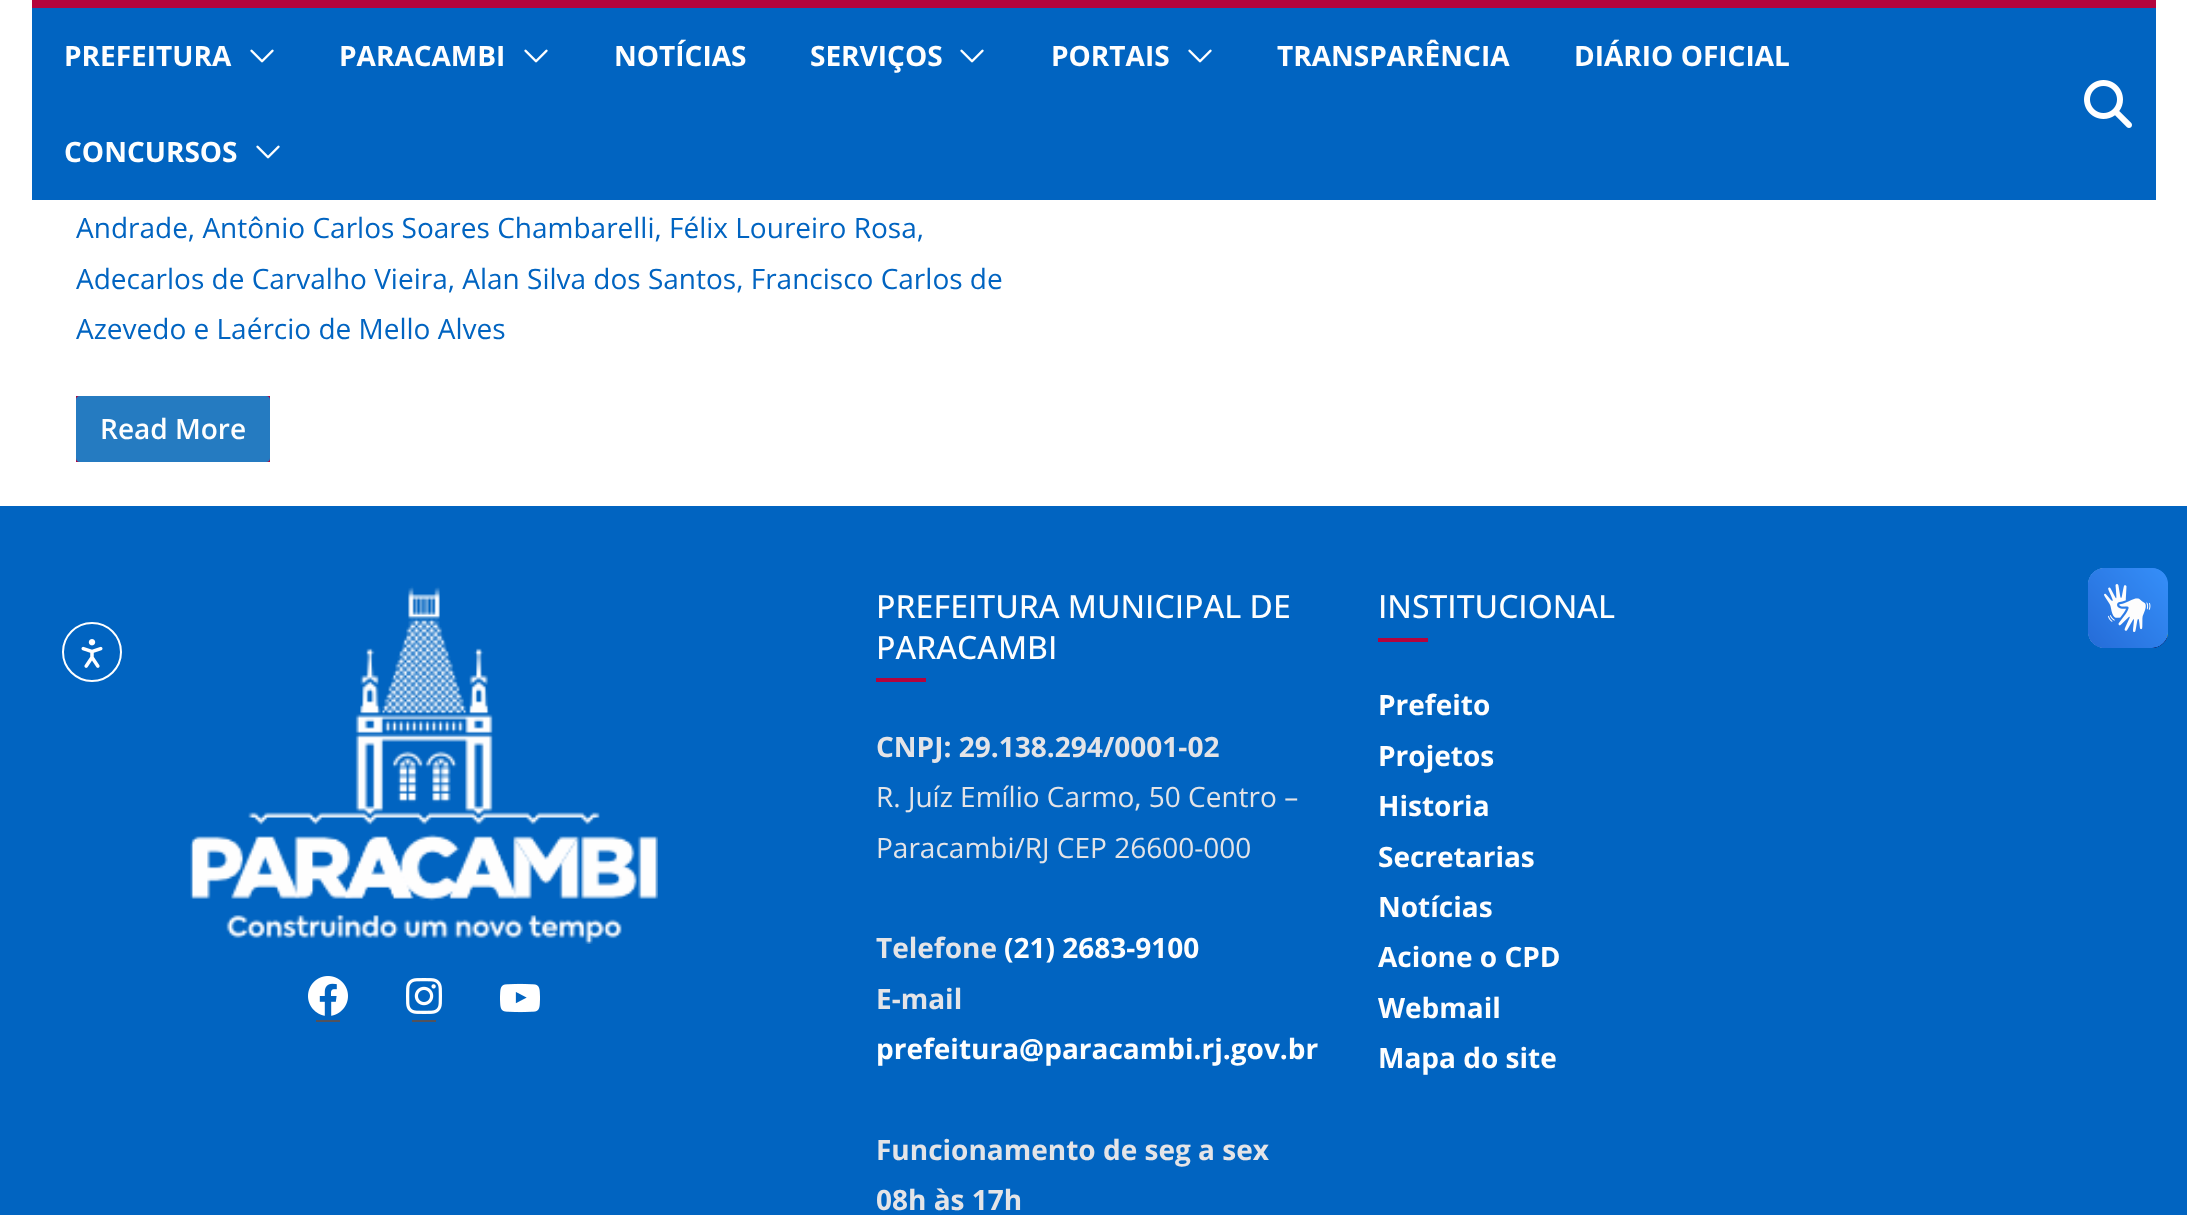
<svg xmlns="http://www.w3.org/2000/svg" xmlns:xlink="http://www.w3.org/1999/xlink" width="2187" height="1215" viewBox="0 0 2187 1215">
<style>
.cls-1{font:bold 28px Open Sans;fill:#fefefe}
.cls-2{font:28px Open Sans;fill:#0164c1}
.cls-3{font:600 28px Open Sans;fill:#fefefe}
.cls-4{font:500 32px Open Sans;fill:#fefefe}
.cls-5{font:bold 28px Open Sans;fill:#e4e4e7}
.cls-6{font:28px Open Sans;fill:#e4e4e7}
</style>
<rect width="100%" height="100%" fill="#ffffff"/>
<rect fill="#0164c1" x="32" y="8" width="2124" height="192"/>
<rect fill="#b4043d" x="32" y="0" width="2124" height="8"/>
<image xlink:href="image0.png" x="250" y="49" width="24" height="14"/>
<image xlink:href="image0.png" x="524" y="49" width="24" height="14"/>
<image xlink:href="image0.png" x="960" y="49" width="24" height="14"/>
<image xlink:href="image0.png" x="1188" y="49" width="24" height="14"/>
<image xlink:href="image0.png" x="256" y="145" width="24" height="14"/>
<image xlink:href="image1.png" x="2084" y="80" width="48" height="48"/>
<rect fill="#b4043d" x="76" y="396" width="194" height="66"/>
<rect fill="#257bc1" x="76" y="396" width="194" height="66" rx="4"/>
<rect fill="#0164c1" x="0" y="506" width="2187" height="709"/>
<image xlink:href="image2.png" x="190" y="586" width="468" height="358"/>
<rect fill="#52525b" x="316" y="1020" width="24" height="2"/>
<image xlink:href="image3.png" x="308" y="976" width="40" height="40"/>
<rect fill="#52525b" x="412" y="1020" width="24" height="2"/>
<image xlink:href="image4.png" x="406" y="978" width="36" height="36"/>
<image xlink:href="image5.png" x="500" y="983" width="40" height="30"/>
<rect fill="#b4043d" x="876" y="678" width="50" height="4"/>
<rect fill="#b4043d" x="1378" y="638" width="50" height="4"/>
<image xlink:href="image6.png" x="2088" y="568" width="80" height="80"/>
<image xlink:href="image7.png" x="2088" y="568" width="80" height="80"/>
<circle fill="none" stroke="#ffffff" stroke-width="2" cx="92" cy="652" r="29"/>
<image xlink:href="image8.png" x="81" y="639" width="22" height="29"/>
<text class="cls-1" x="64" y="66">PREFEITURA</text>
<text class="cls-1" x="339" y="66">PARACAMBI</text>
<text class="cls-1" x="614" y="66">NOTÍCIAS</text>
<text class="cls-1" x="810" y="66">SERVIÇOS</text>
<text class="cls-1" x="1051" y="66">PORTAIS</text>
<text class="cls-1" x="1277" y="66">TRANSPARÊNCIA</text>
<text class="cls-1" x="1574" y="66">DIÁRIO OFICIAL</text>
<text class="cls-1" x="64" y="162">CONCURSOS</text>
<text class="cls-2"><tspan x="76" y="238">Andrade, Antônio Carlos Soares Chambarelli, Félix Loureiro Rosa,</tspan><tspan x="76" y="289">Adecarlos de Carvalho Vieira, Alan Silva dos Santos, Francisco Carlos de</tspan><tspan x="76" y="339">Azevedo e Laércio de Mello Alves</tspan></text>
<text class="cls-3" x="100" y="439">Read More</text>
<text class="cls-4"><tspan x="876" y="618">PREFEITURA MUNICIPAL DE</tspan><tspan x="876" y="659">PARACAMBI</tspan></text>
<text class="cls-5" x="876" y="757">CNPJ: 29.138.294/0001-02</text>
<text class="cls-6"><tspan x="876" y="807">R. Juíz Emílio Carmo, 50 Centro –</tspan><tspan x="876" y="858">Paracambi/RJ CEP 26600-000</tspan></text>
<text class="cls-5" x="876" y="958">Telefone</text>
<text class="cls-1" x="1004" y="958">(21) 2683-9100</text>
<text class="cls-5" x="876" y="1009">E-mail</text>
<text class="cls-1" x="876" y="1059">prefeitura@paracambi.rj.gov.br</text>
<text class="cls-5"><tspan x="876" y="1160">Funcionamento de seg a sex</tspan><tspan x="876" y="1210">08h às 17h</tspan></text>
<text class="cls-4" x="1378" y="618">INSTITUCIONAL</text>
<text class="cls-1"><tspan x="1378" y="715">Prefeito</tspan><tspan x="1378" y="766">Projetos</tspan><tspan x="1378" y="816">Historia</tspan><tspan x="1378" y="867">Secretarias</tspan><tspan x="1378" y="917">Notícias</tspan><tspan x="1378" y="967">Acione o CPD</tspan><tspan x="1378" y="1018">Webmail</tspan><tspan x="1378" y="1068">Mapa do site</tspan></text>
</svg>
